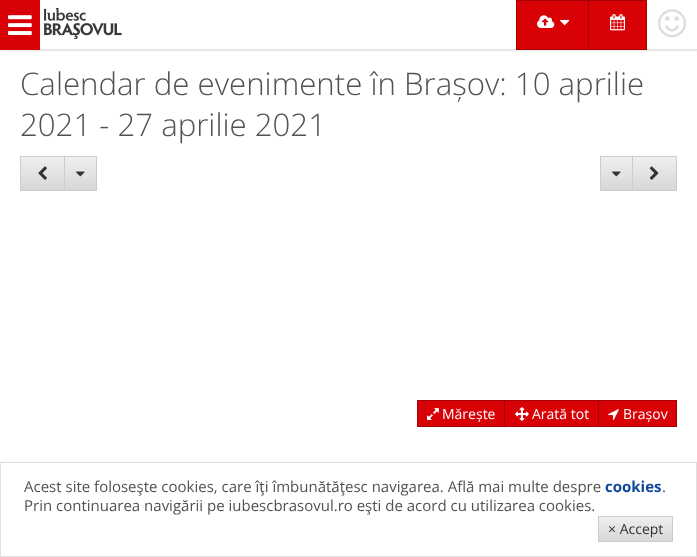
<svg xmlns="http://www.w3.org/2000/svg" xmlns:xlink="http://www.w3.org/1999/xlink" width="697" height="557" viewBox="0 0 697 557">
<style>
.cls-1{font:300 31.2px Open Sans;fill:#525252}
.cls-2{font:14px Open Sans;fill:#ffffff}
.cls-3{font:15px Open Sans;fill:#525252}
.cls-4{font:bold 15px Open Sans;fill:#11479c}
.cls-5{font:14px Open Sans;fill:#333333}
</style>
<defs>
<linearGradient id="g1" gradientUnits="userSpaceOnUse" x1="43" y1="157" x2="43" y2="190"><stop offset="0" stop-color="#efefef"/><stop offset="1" stop-color="#d7d7d7"/></linearGradient>
<linearGradient id="g2" gradientUnits="userSpaceOnUse" x1="81" y1="157" x2="81" y2="190"><stop offset="0" stop-color="#efefef"/><stop offset="1" stop-color="#d7d7d7"/></linearGradient>
<linearGradient id="g3" gradientUnits="userSpaceOnUse" x1="617" y1="157" x2="617" y2="190"><stop offset="0" stop-color="#efefef"/><stop offset="1" stop-color="#d7d7d7"/></linearGradient>
<linearGradient id="g4" gradientUnits="userSpaceOnUse" x1="655" y1="157" x2="655" y2="190"><stop offset="0" stop-color="#efefef"/><stop offset="1" stop-color="#d7d7d7"/></linearGradient>
<linearGradient id="g5" gradientUnits="userSpaceOnUse" x1="636" y1="517" x2="636" y2="541"><stop offset="0" stop-color="#efefef"/><stop offset="1" stop-color="#d7d7d7"/></linearGradient>
</defs>
<rect width="100%" height="100%" fill="#ffffff"/>
<rect fill="#000000" fill-opacity="0.1" filter="blur(1px)" x="1" y="1" width="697" height="50"/>
<rect fill="#ffffff" x="40" y="0" width="657" height="49"/>
<rect fill="#e0e0e0" x="40" y="49" width="657" height="1"/>
<rect fill="#d80106" x="0" y="0" width="40" height="50"/>
<image xlink:href="image0.png" x="8" y="15" width="24" height="20"/>
<image xlink:href="image1.png" x="44" y="8" width="78" height="31"/>
<rect fill="#d80106" stroke="#a50105" x="516.5" y="0.5" width="72" height="49"/>
<image xlink:href="image2.png" x="537" y="15" width="18" height="13"/>
<image xlink:href="image3.png" x="560" y="19" width="10" height="7"/>
<rect fill="#d80106" x="589" y="1" width="57" height="48"/>
<rect fill="#a50105" x="589" y="0" width="58" height="1"/>
<rect fill="#a50105" x="646" y="0" width="1" height="50"/>
<rect fill="#a50105" x="589" y="49" width="58" height="1"/>
<image xlink:href="image4.png" x="610" y="14" width="15" height="17"/>
<image xlink:href="image5.png" x="658" y="9" width="28" height="29"/>
<rect fill="url(#g1)" x="21" y="157" width="43" height="33"/>
<rect fill="none" stroke="#cccccc" x="20.5" y="156.5" width="44" height="34"/>
<image xlink:href="image6.png" x="38" y="166" width="9" height="14"/>
<rect fill="url(#g2)" x="65" y="157" width="31" height="33"/>
<rect fill="#cccccc" x="65" y="156" width="32" height="1"/>
<rect fill="#cccccc" x="96" y="156" width="1" height="35"/>
<rect fill="#cccccc" x="65" y="190" width="32" height="1"/>
<image xlink:href="image7.png" x="76" y="171" width="9" height="6"/>
<rect fill="url(#g3)" x="601" y="157" width="31" height="33"/>
<rect fill="none" stroke="#cccccc" x="600.5" y="156.5" width="32" height="34"/>
<image xlink:href="image7.png" x="612" y="171" width="9" height="6"/>
<rect fill="url(#g4)" x="633" y="157" width="43" height="33"/>
<rect fill="#cccccc" x="633" y="156" width="44" height="1"/>
<rect fill="#cccccc" x="676" y="156" width="1" height="35"/>
<rect fill="#cccccc" x="633" y="190" width="44" height="1"/>
<image xlink:href="image8.png" x="649" y="166" width="10" height="14"/>
<rect fill="#d80106" stroke="#a50105" x="417.5" y="400.5" width="87" height="26"/>
<image xlink:href="image9.png" x="427" y="408" width="12" height="12"/>
<rect fill="#d80106" x="505" y="401" width="93" height="25"/>
<rect fill="#a50105" x="505" y="400" width="172" height="1"/>
<rect fill="#a50105" x="598" y="400" width="1" height="27"/>
<rect fill="#a50105" x="505" y="426" width="94" height="1"/>
<image xlink:href="image10.png" x="515" y="407" width="14" height="14"/>
<rect fill="#d80106" x="599" y="401" width="77" height="25"/>
<rect fill="#a50105" x="676" y="400" width="1" height="27"/>
<rect fill="#a50105" x="599" y="426" width="78" height="1"/>
<image xlink:href="image11.png" x="608" y="409" width="11" height="11"/>
<rect fill="#000000" fill-opacity="0.2" filter="blur(2px)" x="0" y="464" width="697" height="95"/>
<rect fill="#ffffff" stroke="#e0e0e0" x="0.5" y="462.5" width="696" height="94"/>
<rect fill="url(#g5)" x="599" y="517" width="73" height="24"/>
<rect fill="none" stroke="#cccccc" x="598.5" y="516.5" width="74" height="25"/>
<text class="cls-1"><tspan x="20" y="95">Calendar de evenimente în Brașov: 10 aprilie</tspan><tspan x="20" y="136">2021 - 27 aprilie 2021</tspan></text>
<text class="cls-2" x="442" y="419">Mărește</text>
<text class="cls-2" x="532" y="419">Arată tot</text>
<text class="cls-2" x="623" y="419">Brașov</text>
<text class="cls-3" x="24" y="492">Acest site foloseşte cookies, care îţi îmbunătăţesc navigarea. Află mai multe despre</text>
<text class="cls-4" x="605" y="492">cookies</text>
<text class="cls-3" x="662" y="492">.</text>
<text class="cls-3" x="24" y="511">Prin continuarea navigării pe iubescbrasovul.ro eşti de acord cu utilizarea cookies.</text>
<text class="cls-5" x="608" y="534">× Accept</text>
</svg>
